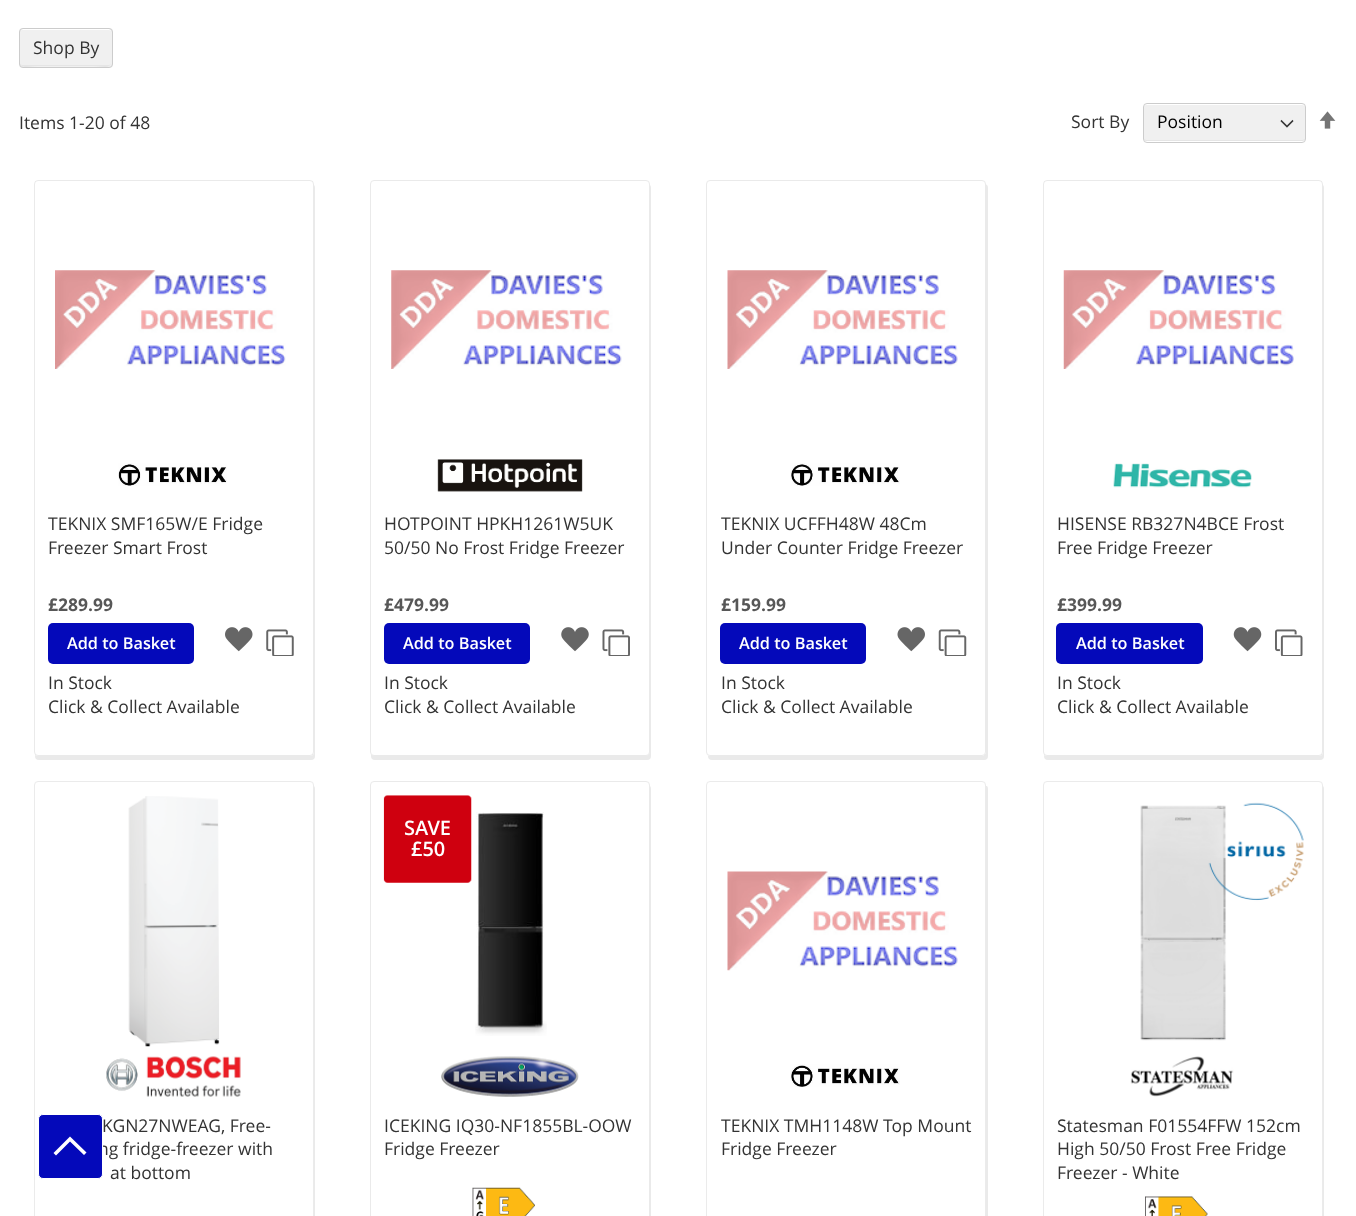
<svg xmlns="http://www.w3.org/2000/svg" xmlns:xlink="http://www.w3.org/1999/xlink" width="1356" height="1216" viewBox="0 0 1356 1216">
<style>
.cls-1{font:17.5px Open Sans;fill:#333333}
.cls-2{font:17.5px Open Sans;fill:#000000}
.cls-3{font:bold 17.5px Open Sans;fill:#575757}
.cls-4{font:600 16.25px Open Sans;fill:#ffffff}
.cls-5{font:600 20px Open Sans;fill:#ffffff}
</style>
<defs>
<clipPath id="clip1"><path d="M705 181H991V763H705ZM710 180H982C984 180 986 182 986 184V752C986 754 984 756 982 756H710C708 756 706 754 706 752V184C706 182 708 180 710 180Z" clip-rule="evenodd"/></clipPath>
<clipPath id="clip2"><rect x="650" y="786" width="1" height="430"/></clipPath>
<clipPath id="clip3"><rect x="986" y="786" width="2" height="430"/></clipPath>
</defs>
<rect width="100%" height="100%" fill="#ffffff"/>
<rect fill="#f0f0f0" x="19" y="28" width="94" height="40" rx="4"/>
<path fill="#e5e5e5" d="M20 62C20 70 31 66 37 66H94C100 66 111 70 111 62C111 64 110 65 109 65H22C21 65 20 64 20 62Z"/>
<path fill="#ffffff" d="M22 30H109C110 30 111 31 111 32C111 31 110 29 109 29H22C21 29 20 31 20 32C20 31 21 30 22 30Z"/>
<rect fill="none" stroke="#cccccc" x="19.5" y="28.5" width="93" height="39" rx="3.5"/>
<rect fill="#f0f0f0" x="1144" y="104" width="161" height="37" rx="2.5"/>
<image xlink:href="image0.png" x="1280" y="119" width="14" height="9"/>
<path fill="#cccccc" fill-opacity="0.3" d="M1144 138C1144 140 1145 141 1146 141H1302C1304 141 1305 140 1305 138C1305 139 1304 140 1302 140H1146C1145 140 1144 139 1144 138Z"/>
<path fill="#ffffff" d="M1146 105H1302C1304 105 1305 106 1305 108C1305 106 1305 104 1302 104H1146C1144 104 1144 106 1144 108C1144 106 1145 105 1146 105Z"/>
<rect fill="none" stroke="#cccccc" x="1143.5" y="103.5" width="162" height="39" rx="3.5"/>
<image xlink:href="image1.png" x="1319" y="111" width="17" height="18"/>
<rect fill="#323232" fill-opacity="0.1" filter="blur(0.5px)" x="35" y="184" width="280" height="576" rx="4"/>
<rect fill="#ffffff" x="34" y="180" width="280" height="576" rx="4"/>
<rect fill="none" stroke="#323232" stroke-opacity="0.1" x="34.5" y="180.5" width="279" height="575" rx="3.5"/>
<image xlink:href="image2.png" x="55" y="270" width="231" height="99"/>
<image xlink:href="image3.png" x="118" y="463" width="109" height="23"/>
<rect fill="#0409ba" x="48" y="623" width="146" height="41" rx="5"/>
<image xlink:href="image4.png" x="225" y="627" width="28" height="25"/>
<image xlink:href="image5.png" x="266" y="629" width="28" height="27"/>
<rect fill="#323232" fill-opacity="0.1" filter="blur(0.5px)" x="371" y="184" width="280" height="576" rx="4"/>
<rect fill="#ffffff" stroke="#eaeaea" x="370.5" y="180.5" width="279" height="575" rx="3.5"/>
<image xlink:href="image6.png" x="391" y="270" width="231" height="99"/>
<image xlink:href="image7.png" x="437" y="459" width="146" height="33"/>
<rect fill="#0409ba" x="384" y="623" width="146" height="41" rx="5"/>
<image xlink:href="image8.png" x="561" y="627" width="28" height="25"/>
<image xlink:href="image9.png" x="602" y="629" width="28" height="27"/>
<g clip-path="url(#clip1)">
<rect fill="#323232" fill-opacity="0.1" filter="blur(0.5px)" x="708" y="184" width="280" height="576" rx="4"/>
</g>
<rect fill="none" stroke="#eaeaea" x="706.5" y="180.5" width="279" height="575" rx="3.5"/>
<image xlink:href="image10.png" x="727" y="270" width="231" height="99"/>
<image xlink:href="image11.png" x="790" y="463" width="110" height="23"/>
<rect fill="#0409ba" x="720" y="623" width="146" height="41" rx="5"/>
<image xlink:href="image12.png" x="897" y="627" width="28" height="25"/>
<image xlink:href="image13.png" x="938" y="629" width="29" height="27"/>
<rect fill="#323232" fill-opacity="0.1" filter="blur(0.5px)" x="1044" y="184" width="280" height="576" rx="4"/>
<rect fill="#ffffff" x="1043" y="180" width="280" height="576" rx="4"/>
<rect fill="none" stroke="#323232" stroke-opacity="0.1" x="1043.5" y="180.5" width="279" height="575" rx="3.5"/>
<image xlink:href="image14.png" x="1063" y="270" width="231" height="99"/>
<image xlink:href="image15.png" x="1113" y="463" width="139" height="25"/>
<rect fill="#0409ba" x="1056" y="623" width="147" height="41" rx="5"/>
<image xlink:href="image16.png" x="1233" y="627" width="29" height="25"/>
<image xlink:href="image17.png" x="1275" y="629" width="28" height="27"/>
<rect fill="#323232" fill-opacity="0.1" filter="blur(0.5px)" x="35" y="785" width="280" height="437" rx="4"/>
<rect fill="#ffffff" stroke="#ebebeb" x="34.5" y="781.5" width="279" height="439" rx="3.5"/>
<image xlink:href="image18.png" x="128" y="796" width="92" height="251"/>
<image xlink:href="image19.png" x="106" y="1056" width="135" height="41"/>
<g clip-path="url(#clip2)">
<rect fill="#323232" fill-opacity="0.1" filter="blur(0.5px)" x="371" y="785" width="280" height="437" rx="4"/>
</g>
<rect fill="none" stroke="#eaeaea" x="370.5" y="781.5" width="279" height="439" rx="3.5"/>
<image xlink:href="image20.png" x="383" y="795" width="89" height="88"/>
<image xlink:href="image21.png" x="475" y="812" width="72" height="224"/>
<image xlink:href="image22.png" x="441" y="1056" width="138" height="41"/>
<image xlink:href="image23.png" x="472" y="1187" width="63" height="29"/>
<g clip-path="url(#clip3)">
<rect fill="#323232" fill-opacity="0.1" filter="blur(0.5px)" x="708" y="785" width="280" height="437" rx="4"/>
</g>
<rect fill="none" stroke="#ebebeb" x="706.5" y="781.5" width="279" height="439" rx="3.5"/>
<image xlink:href="image24.png" x="727" y="871" width="231" height="100"/>
<image xlink:href="image25.png" x="790" y="1064" width="110" height="23"/>
<rect fill="#323232" fill-opacity="0.1" filter="blur(0.5px)" x="1044" y="785" width="280" height="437" rx="4"/>
<rect fill="#ffffff" stroke="#ebebeb" x="1043.5" y="781.5" width="279" height="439" rx="3.5"/>
<image xlink:href="image26.png" x="1140" y="802" width="164" height="239"/>
<image xlink:href="image27.png" x="1130" y="1056" width="104" height="41"/>
<image xlink:href="image28.png" x="1145" y="1196" width="63" height="20"/>
<text class="cls-1" x="33" y="54">Shop By</text>
<text class="cls-1" x="19" y="129">Items 1-20 of 48</text>
<text class="cls-1" x="1071" y="128">Sort By</text>
<text class="cls-2" x="1157" y="128">Position</text>
<text class="cls-1"><tspan x="48" y="530">TEKNIX SMF165W/E Fridge</tspan><tspan x="48" y="554">Freezer Smart Frost</tspan></text>
<text class="cls-3" x="48" y="611">£289.99</text>
<text class="cls-4" x="67" y="649">Add to Basket</text>
<text class="cls-1"><tspan x="48" y="689">In Stock</tspan><tspan x="48" y="713">Click &amp; Collect Available</tspan></text>
<text class="cls-1"><tspan x="384" y="530">HOTPOINT HPKH1261W5UK</tspan><tspan x="384" y="554">50/50 No Frost Fridge Freezer</tspan></text>
<text class="cls-3" x="384" y="611">£479.99</text>
<text class="cls-4" x="403" y="649">Add to Basket</text>
<text class="cls-1"><tspan x="384" y="689">In Stock</tspan><tspan x="384" y="713">Click &amp; Collect Available</tspan></text>
<text class="cls-1"><tspan x="721" y="530">TEKNIX UCFFH48W 48Cm</tspan><tspan x="721" y="554">Under Counter Fridge Freezer</tspan></text>
<text class="cls-3" x="721" y="611">£159.99</text>
<text class="cls-4" x="739" y="649">Add to Basket</text>
<text class="cls-1"><tspan x="721" y="689">In Stock</tspan><tspan x="721" y="713">Click &amp; Collect Available</tspan></text>
<text class="cls-1"><tspan x="1057" y="530">HISENSE RB327N4BCE Frost</tspan><tspan x="1057" y="554">Free Fridge Freezer</tspan></text>
<text class="cls-3" x="1057" y="611">£399.99</text>
<text class="cls-4" x="1076" y="649">Add to Basket</text>
<text class="cls-1"><tspan x="1057" y="689">In Stock</tspan><tspan x="1057" y="713">Click &amp; Collect Available</tspan></text>
<text class="cls-1" x="102" y="1132">KGN27NWEAG, Free-</text>
<text class="cls-1" x="98" y="1155">ng fridge-freezer with</text>
<text class="cls-1" x="110" y="1179">at bottom</text>
<text class="cls-5" x="404" y="835">SAVE</text>
<text class="cls-5" x="411" y="856">£50</text>
<text class="cls-1"><tspan x="384" y="1132">ICEKING IQ30-NF1855BL-OOW</tspan><tspan x="384" y="1155">Fridge Freezer</tspan></text>
<text class="cls-1"><tspan x="721" y="1132">TEKNIX TMH1148W Top Mount</tspan><tspan x="721" y="1155">Fridge Freezer</tspan></text>
<text class="cls-1"><tspan x="1057" y="1132">Statesman F01554FFW 152cm</tspan><tspan x="1057" y="1155">High 50/50 Frost Free Fridge</tspan><tspan x="1057" y="1179">Freezer - White</tspan></text>
<rect fill="#0409ba" stroke="#ffffff" x="38.5" y="1114.5" width="64" height="64" rx="4.5"/>
<path fill="#ffffff" d="M70 1141.5L84 1155L86.5 1152.5L70 1136.5L53.5 1153L56 1155.5Z"/>
</svg>
